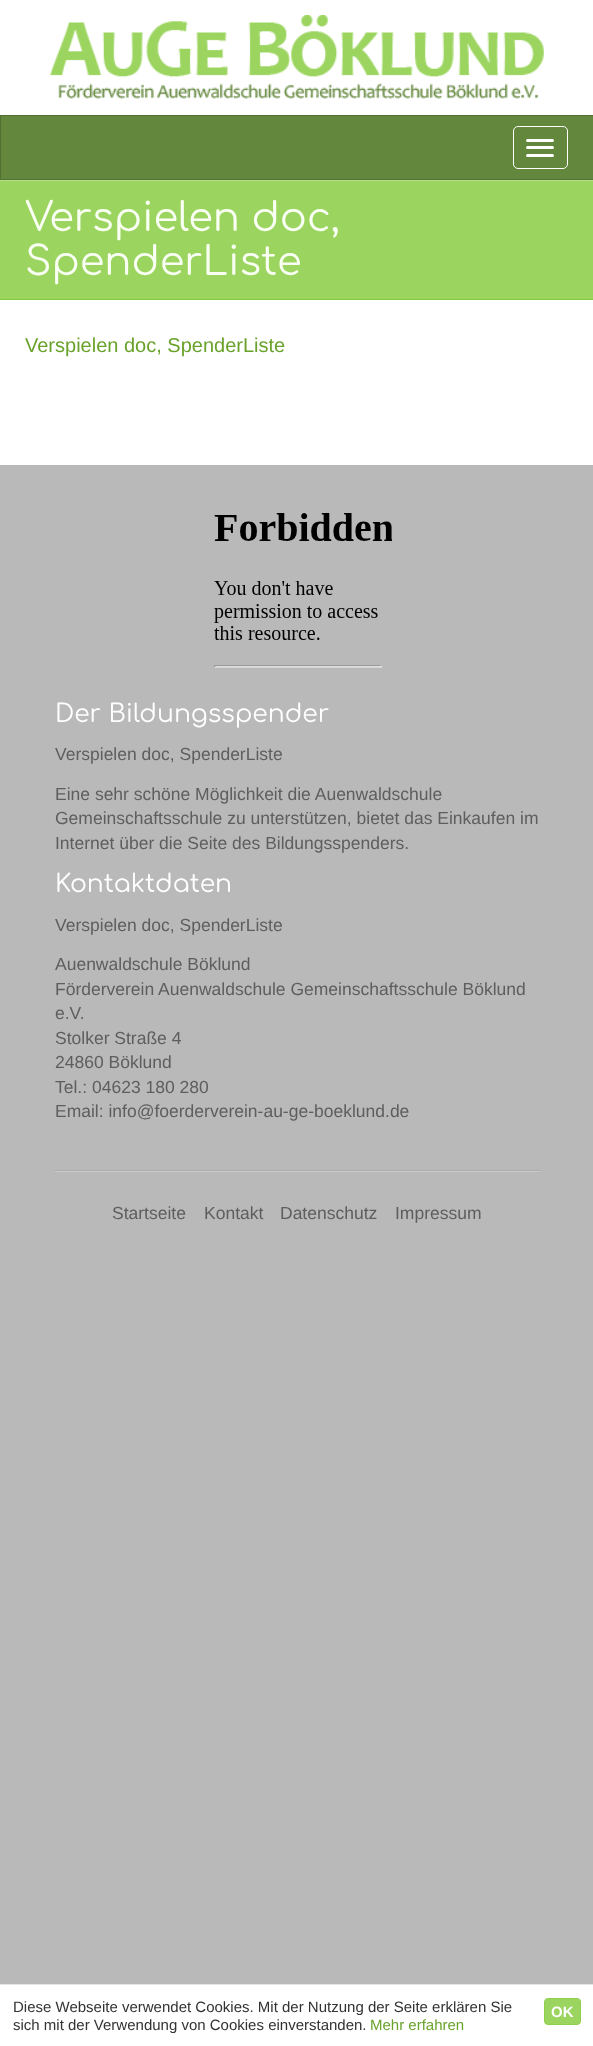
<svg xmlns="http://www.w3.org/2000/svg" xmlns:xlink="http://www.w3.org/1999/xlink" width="593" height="2046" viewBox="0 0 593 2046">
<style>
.cls-1{font:40px Comfortaa;fill:#f9fff2}
.cls-2{font:20px Liberation Sans;fill:#68a22b}
.cls-3{font:25px Comfortaa;fill:#ffffff}
.cls-4{font:17.5px Liberation Sans;fill:#5e5e5e}
.cls-5{font:15px Liberation Sans;fill:#333333}
.cls-6{font:15px Liberation Sans;fill:#68a22b}
.cls-7{font:bold 15px Liberation Sans;fill:#ffffff}
</style>
<rect width="100%" height="100%" fill="#b9b9b9"/>
<rect fill="#ffffff" x="0" y="0" width="593" height="115"/>
<image xlink:href="image0.png" x="50" y="15" width="494" height="84"/>
<rect fill="#63873d" stroke="#527033" x="0.5" y="115.5" width="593" height="64"/>
<rect fill="none" stroke="#ffffff" x="513.5" y="126.5" width="54" height="42" rx="4.5"/>
<rect fill="#ffffff" x="526" y="139" width="28" height="3" rx="1.5"/>
<rect fill="#ffffff" x="526" y="146" width="28" height="3" rx="1.5"/>
<rect fill="#ffffff" x="526" y="154" width="28" height="3" rx="1.5"/>
<rect fill="#ffffff" x="0" y="300" width="593" height="165"/>
<rect fill="#9bd45f" x="0" y="181" width="593" height="118"/>
<rect fill="#b4df87" x="0" y="180" width="593" height="1"/>
<rect fill="#82c937" x="0" y="299" width="593" height="1"/>
<image xlink:href="image1.png" x="214" y="513" width="178" height="155"/>
<rect fill="#aaaaaa" x="55" y="1170" width="484" height="1"/>
<rect fill="#cccccc" x="55" y="1171" width="484" height="1"/>
<rect fill="#ffffff" x="0" y="1985" width="593" height="61"/>
<rect fill="#e5e5e5" x="0" y="1984" width="593" height="1"/>
<rect fill="#9bd45f" stroke="#8ecf4b" x="544.5" y="1998.5" width="36" height="26" rx="3.5"/>
<text class="cls-1"><tspan x="25" y="231">Verspielen doc,</tspan><tspan x="25" y="275">SpenderListe</tspan></text>
<text class="cls-2" x="25" y="352">Verspielen doc, SpenderListe</text>
<text class="cls-3" x="55" y="722">Der Bildungsspender</text>
<text class="cls-4" x="55" y="760">Verspielen doc, SpenderListe</text>
<text class="cls-4"><tspan x="55" y="800">Eine sehr schöne Möglichkeit die Auenwaldschule</tspan><tspan x="55" y="824">Gemeinschaftsschule zu unterstützen, bietet das Einkaufen im</tspan><tspan x="55" y="849">Internet über die Seite des Bildungsspenders.</tspan></text>
<text class="cls-3" x="55" y="892">Kontaktdaten</text>
<text class="cls-4" x="55" y="931">Verspielen doc, SpenderListe</text>
<text class="cls-4"><tspan x="55" y="970">Auenwaldschule Böklund</tspan><tspan x="55" y="995">Förderverein Auenwaldschule Gemeinschaftsschule Böklund</tspan><tspan x="55" y="1019">e.V.</tspan><tspan x="55" y="1044">Stolker Straße 4</tspan><tspan x="55" y="1068">24860 Böklund</tspan><tspan x="55" y="1093">Tel.: 04623 180 280</tspan><tspan x="55" y="1117">Email: info@foerderverein-au-ge-boeklund.de</tspan></text>
<text class="cls-4" x="112" y="1219">Startseite</text>
<text class="cls-4" x="204" y="1219">Kontakt</text>
<text class="cls-4" x="280" y="1219">Datenschutz</text>
<text class="cls-4" x="395" y="1219">Impressum</text>
<text class="cls-5"><tspan x="13" y="2012">Diese Webseite verwendet Cookies. Mit der Nutzung der Seite erklären Sie</tspan><tspan x="13" y="2030">sich mit der Verwendung von Cookies einverstanden.</tspan></text>
<text class="cls-6" x="370" y="2030">Mehr erfahren</text>
<text class="cls-7" x="551" y="2017">OK</text>
</svg>
